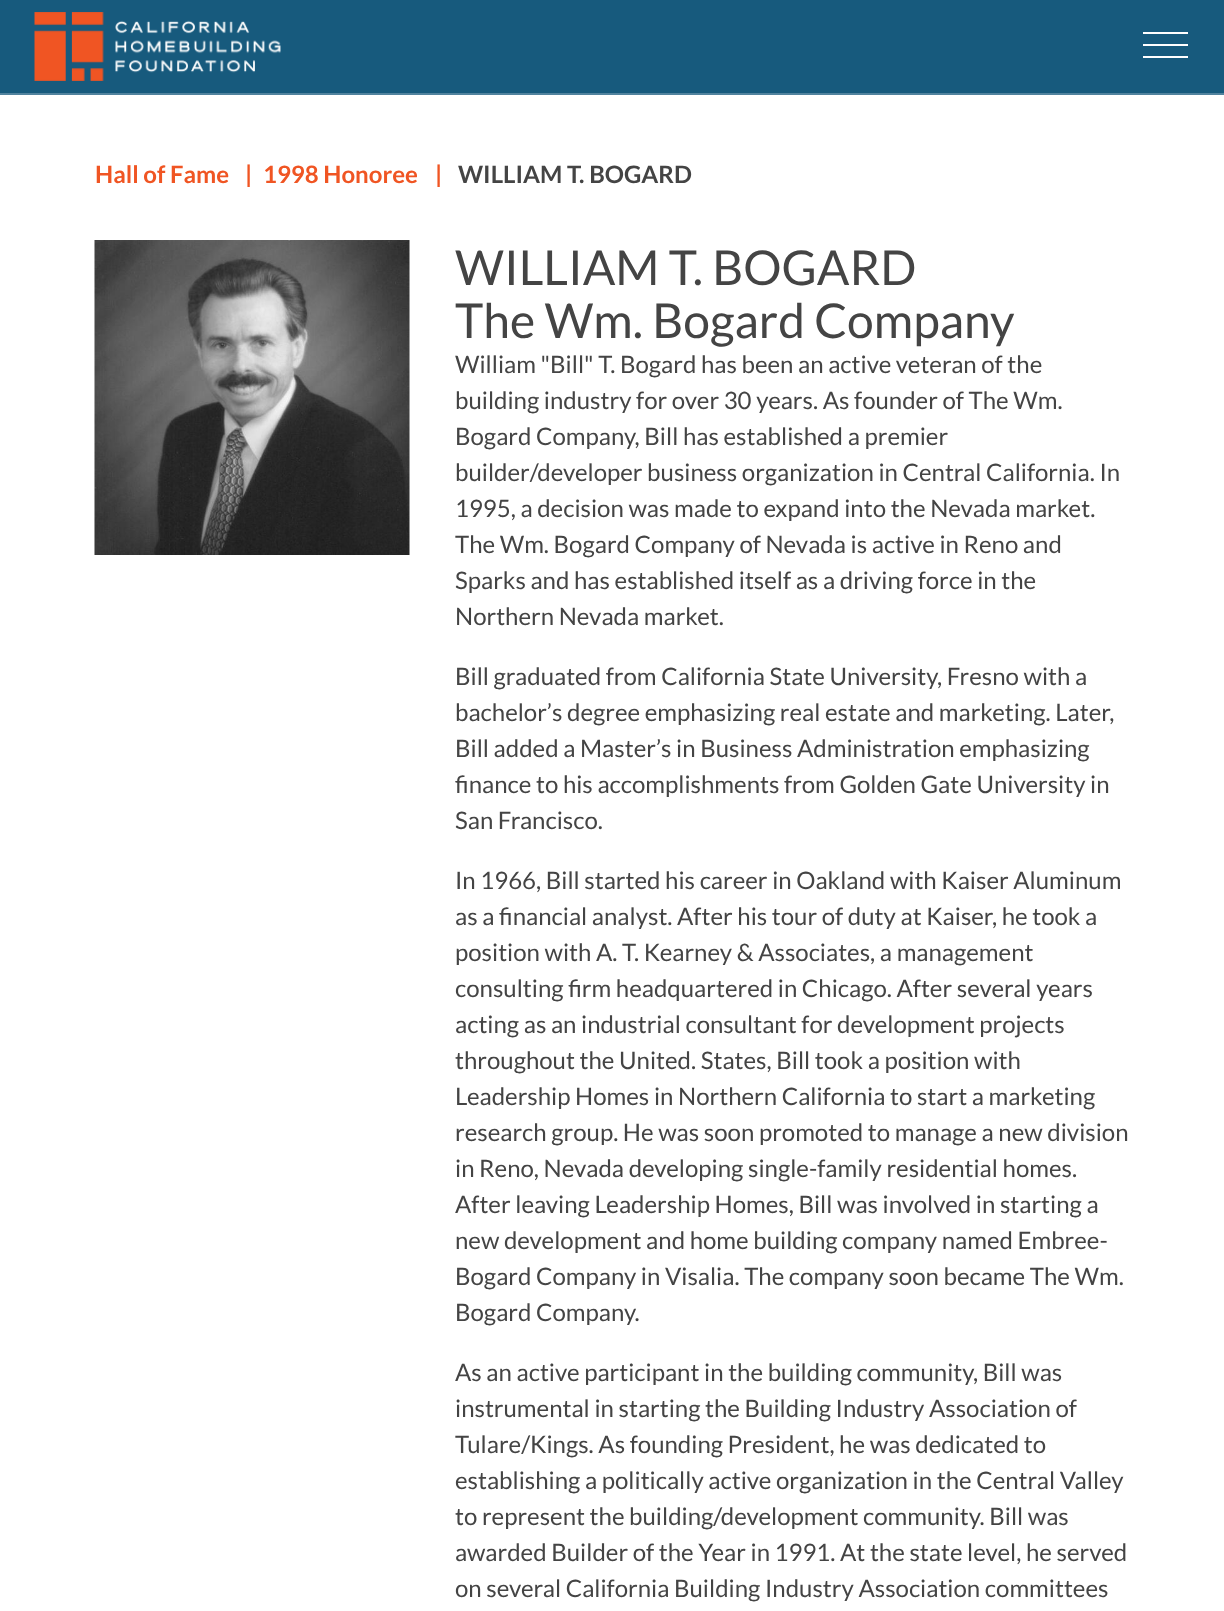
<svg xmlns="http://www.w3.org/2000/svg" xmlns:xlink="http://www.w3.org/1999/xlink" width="1224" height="1611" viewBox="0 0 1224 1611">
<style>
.cls-1{font:bold 24px Lato;fill:#f05523}
.cls-2{font:bold 24px Lato;fill:#444444}
.cls-3{font:48px Lato;fill:#444444}
.cls-4{font:24px Lato;fill:#444444}
</style>
<rect width="100%" height="100%" fill="#ffffff"/>
<rect fill="#175a7d" x="0" y="0" width="1224" height="93"/>
<rect fill="#51839e" x="0" y="93" width="1224" height="2"/>
<image xlink:href="image0.png" x="34" y="12" width="247" height="69"/>
<rect fill="#ffffff" x="1143" y="44" width="45" height="2"/>
<rect fill="#ffffff" x="1143" y="32" width="45" height="2"/>
<rect fill="#ffffff" x="1143" y="56" width="45" height="2"/>
<image xlink:href="image1.png" x="94" y="240" width="316" height="315"/>
<text class="cls-1" x="95" y="183">Hall of Fame</text>
<text class="cls-1" x="245" y="183">|</text>
<text class="cls-1" x="263" y="183">1998 Honoree</text>
<text class="cls-1" x="435" y="183">|</text>
<text class="cls-2" x="458" y="183">WILLIAM T. BOGARD</text>
<text class="cls-3"><tspan x="455" y="285">WILLIAM T. BOGARD</tspan><tspan x="455" y="338">The Wm. Bogard Company</tspan></text>
<text class="cls-4"><tspan x="455" y="373">William "Bill" T. Bogard has been an active veteran of the</tspan><tspan x="455" y="409">building industry for over 30 years. As founder of The Wm.</tspan><tspan x="455" y="445">Bogard Company, Bill has established a premier</tspan><tspan x="455" y="481">builder/developer business organization in Central California. In</tspan><tspan x="455" y="517">1995, a decision was made to expand into the Nevada market.</tspan><tspan x="455" y="553">The Wm. Bogard Company of Nevada is active in Reno and</tspan><tspan x="455" y="589">Sparks and has established itself as a driving force in the</tspan><tspan x="455" y="625">Northern Nevada market.</tspan></text>
<text class="cls-4"><tspan x="455" y="685">Bill graduated from California State University, Fresno with a</tspan><tspan x="455" y="721">bachelor’s degree emphasizing real estate and marketing. Later,</tspan><tspan x="455" y="757">Bill added a Master’s in Business Administration emphasizing</tspan><tspan x="455" y="793">finance to his accomplishments from Golden Gate University in</tspan><tspan x="455" y="829">San Francisco.</tspan></text>
<text class="cls-4"><tspan x="455" y="889">In 1966, Bill started his career in Oakland with Kaiser Aluminum</tspan><tspan x="455" y="925">as a financial analyst. After his tour of duty at Kaiser, he took a</tspan><tspan x="455" y="961">position with A. T. Kearney &amp; Associates, a management</tspan><tspan x="455" y="997">consulting firm headquartered in Chicago. After several years</tspan><tspan x="455" y="1033">acting as an industrial consultant for development projects</tspan><tspan x="455" y="1069">throughout the United. States, Bill took a position with</tspan><tspan x="455" y="1105">Leadership Homes in Northern California to start a marketing</tspan><tspan x="455" y="1141">research group. He was soon promoted to manage a new division</tspan><tspan x="455" y="1177">in Reno, Nevada developing single-family residential homes.</tspan><tspan x="455" y="1213">After leaving Leadership Homes, Bill was involved in starting a</tspan><tspan x="455" y="1249">new development and home building company named Embree-</tspan><tspan x="455" y="1285">Bogard Company in Visalia. The company soon became The Wm.</tspan><tspan x="455" y="1321">Bogard Company.</tspan></text>
<text class="cls-4"><tspan x="455" y="1381">As an active participant in the building community, Bill was</tspan><tspan x="455" y="1417">instrumental in starting the Building Industry Association of</tspan><tspan x="455" y="1453">Tulare/Kings. As founding President, he was dedicated to</tspan><tspan x="455" y="1489">establishing a politically active organization in the Central Valley</tspan><tspan x="455" y="1525">to represent the building/development community. Bill was</tspan><tspan x="455" y="1561">awarded Builder of the Year in 1991. At the state level, he served</tspan><tspan x="455" y="1597">on several California Building Industry Association committees</tspan></text>
</svg>
